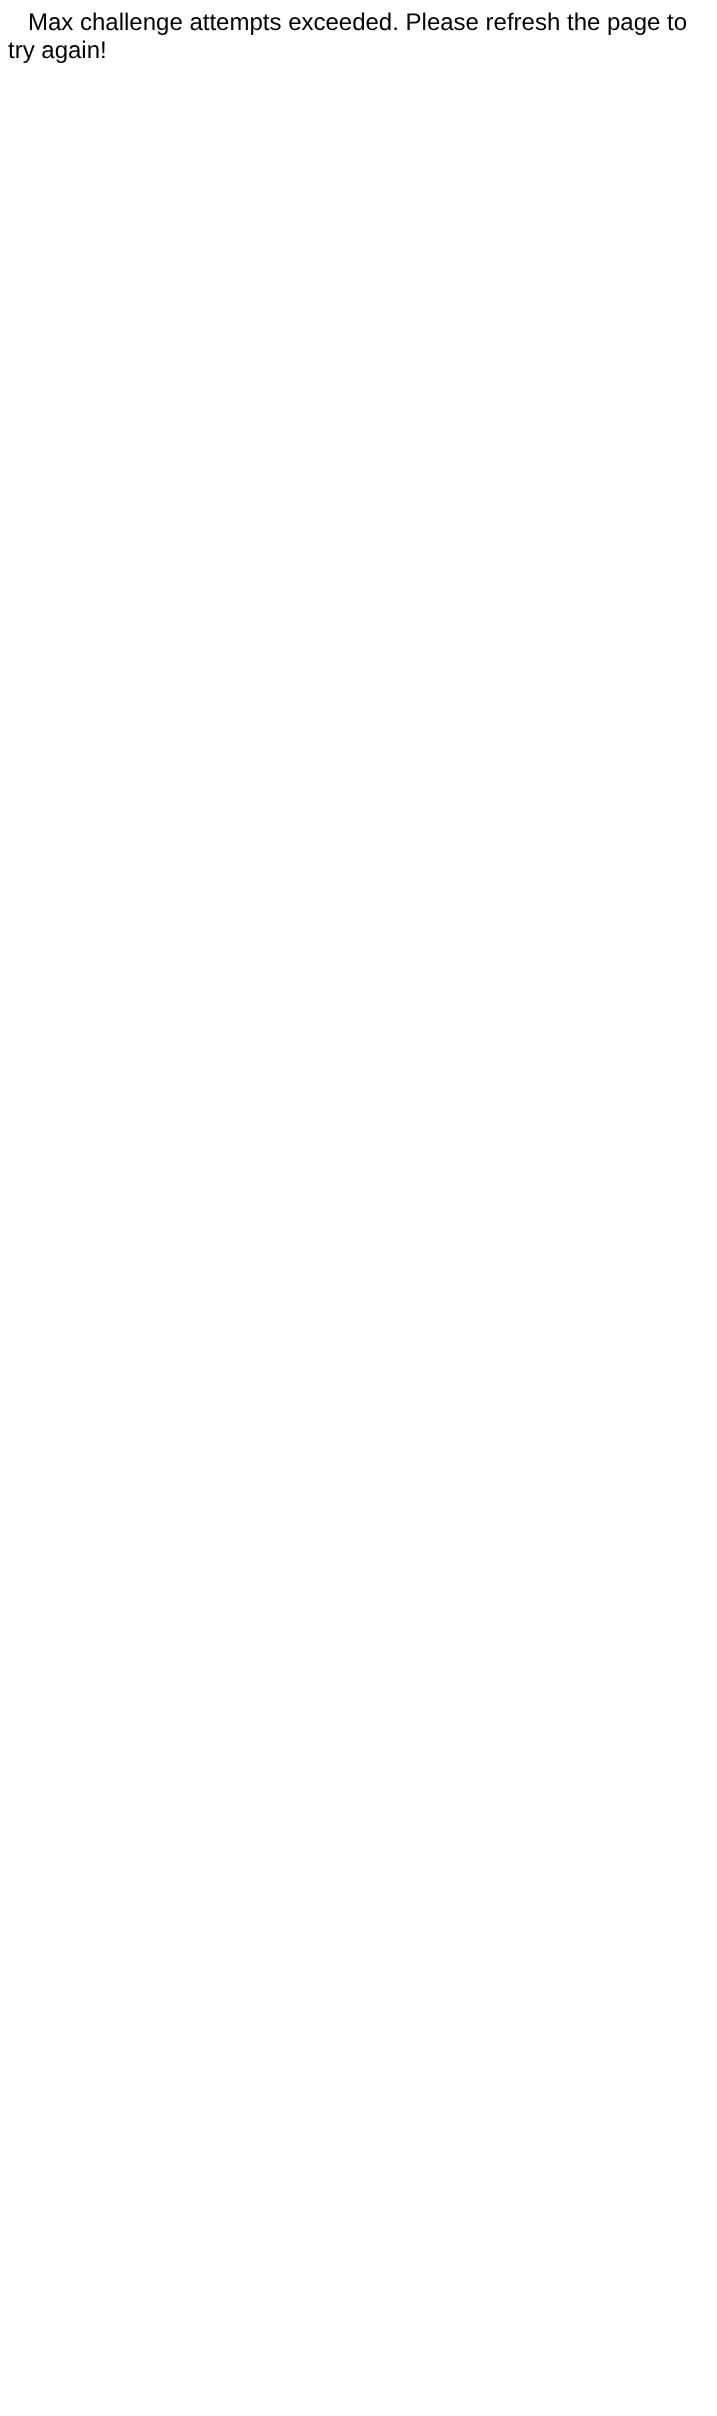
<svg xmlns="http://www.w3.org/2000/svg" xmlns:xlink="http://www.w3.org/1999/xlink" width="717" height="2416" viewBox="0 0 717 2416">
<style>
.cls-1{font:24px Liberation Sans;fill:#000000}
</style>
<rect width="100%" height="100%" fill="#ffffff"/>
<text class="cls-1" x="28" y="30">Max challenge attempts exceeded. Please refresh the page to</text>
<text class="cls-1" x="8" y="58">try again!</text>
</svg>
